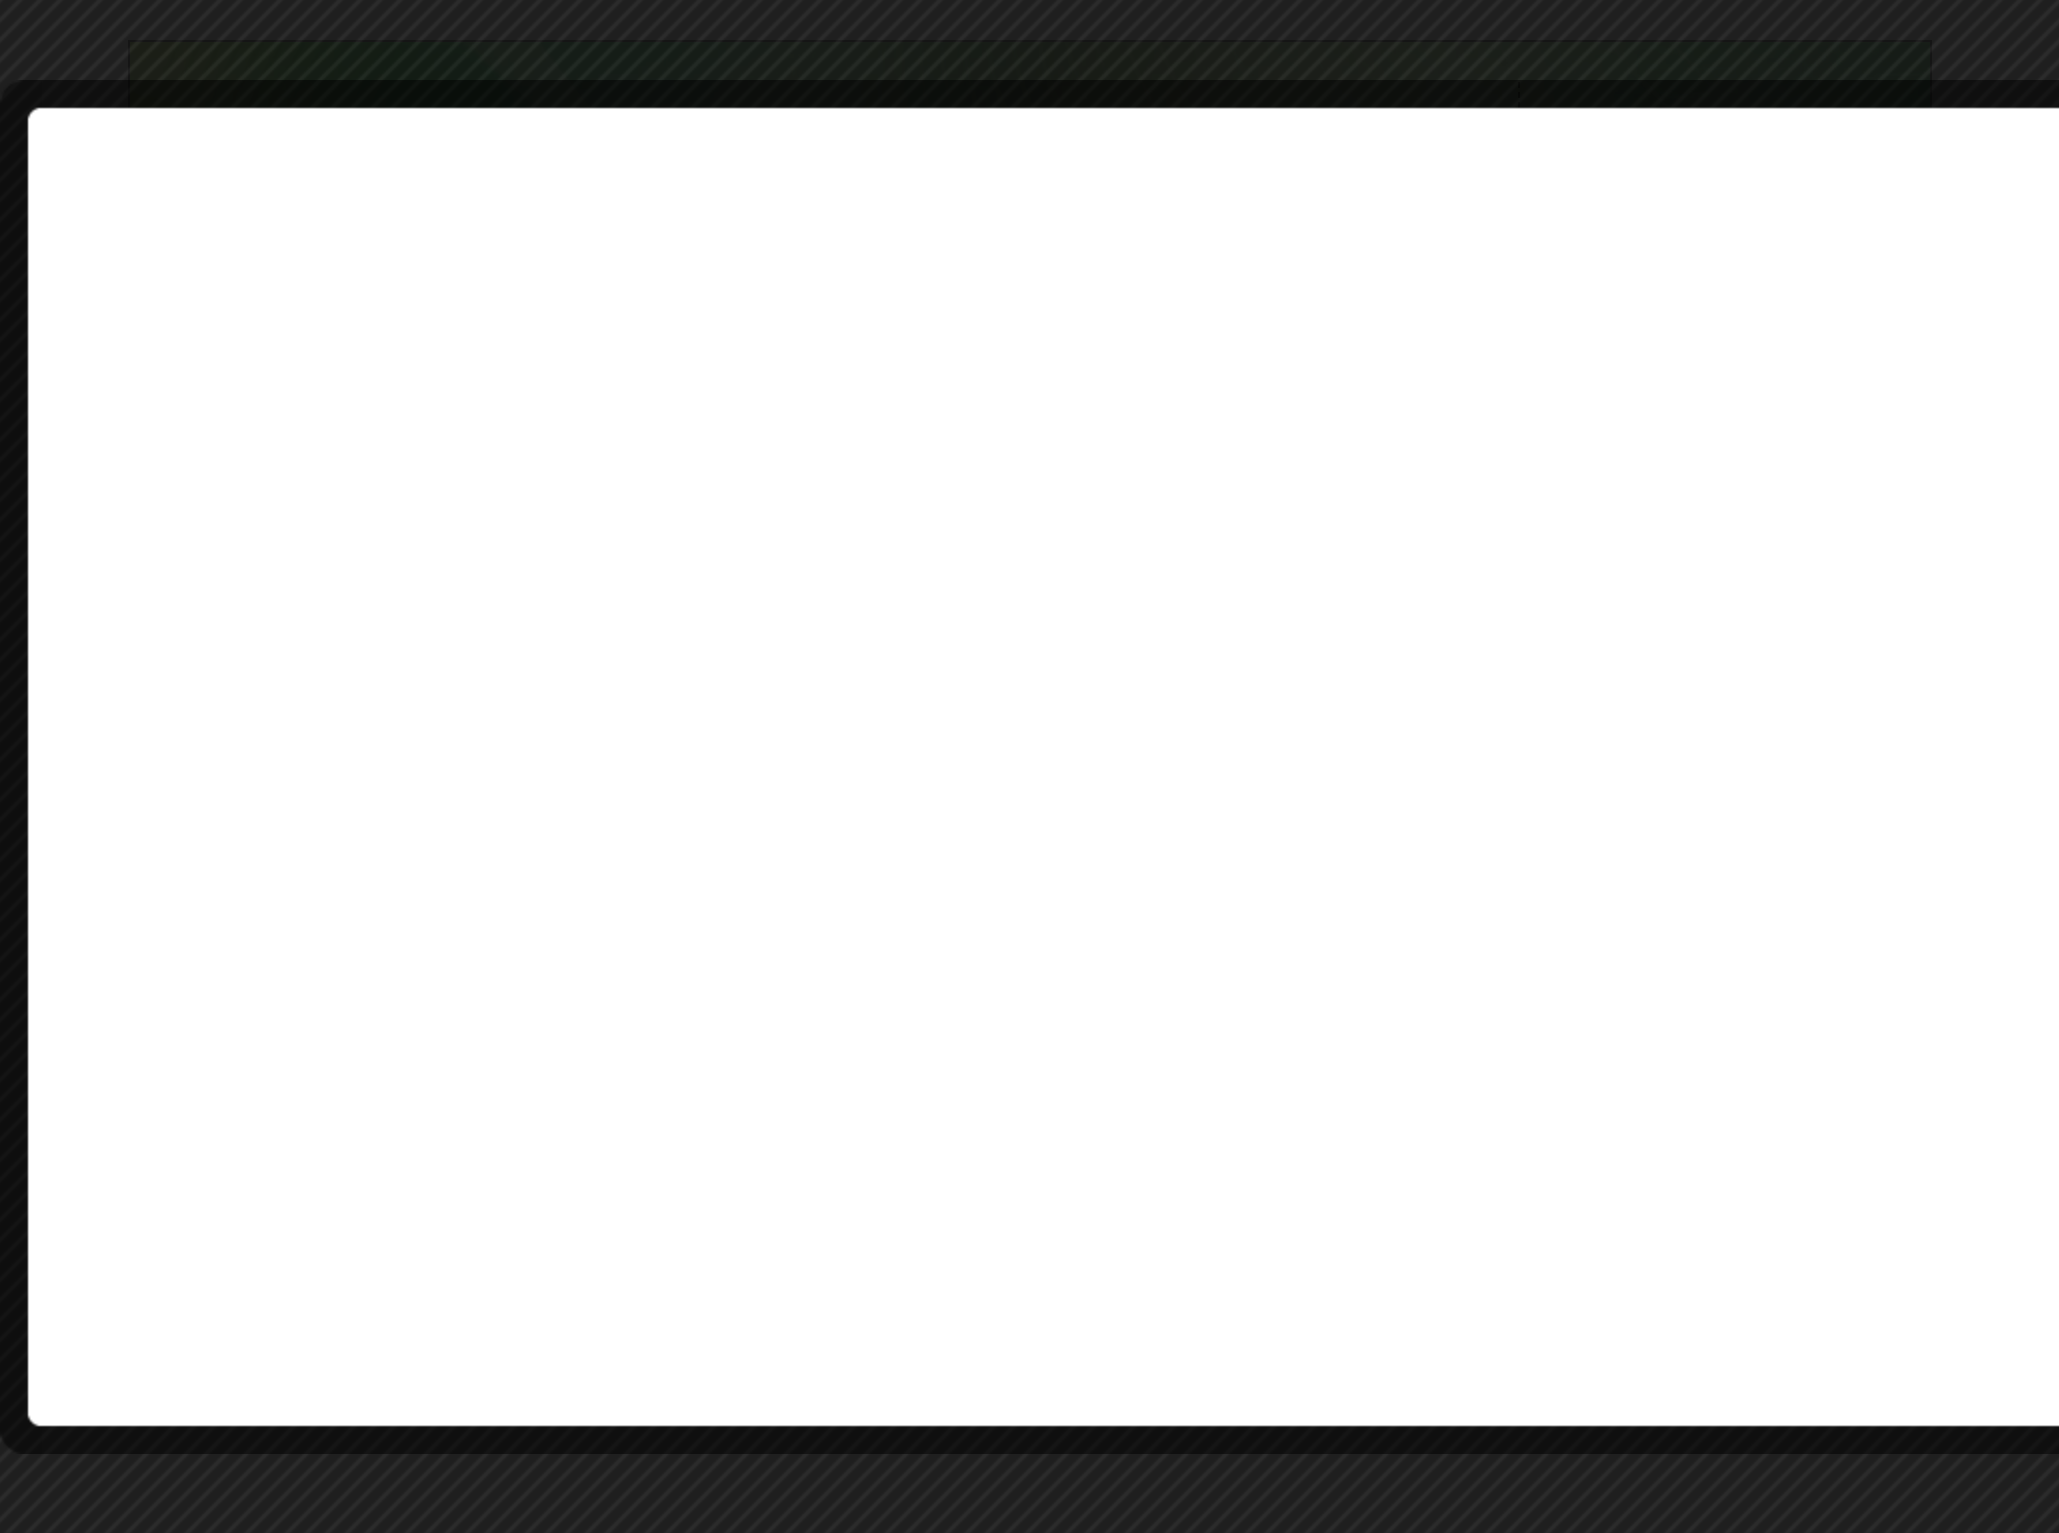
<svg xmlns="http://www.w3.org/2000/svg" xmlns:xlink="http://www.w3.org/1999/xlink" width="2059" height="1533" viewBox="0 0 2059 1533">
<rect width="100%" height="100%" fill="#ffffff"/>
<rect fill="none" stroke="#999999" stroke-width="2" x="129" y="41" width="1802" height="1216"/>
<image xlink:href="image1.png" x="130" y="42" width="1800" height="67"/>
<path fill="none" stroke="#000000" stroke-opacity="0.5" stroke-width="2" stroke-dasharray="6 3.98" d="M1519 82V1216"/>
<image xlink:href="image0.png" x="0" y="0" width="2059" height="1533"/>
<image xlink:href="image2.png" x="0" y="80" width="42" height="42"/>
<image xlink:href="image3.png" x="42" y="80" width="2017" height="42"/>
<image xlink:href="image4.png" x="0" y="122" width="42" height="1290"/>
<rect fill="#ffffff" x="42" y="122" width="2017" height="1290"/>
<image xlink:href="image5.png" x="0" y="1412" width="42" height="42"/>
<image xlink:href="image6.png" x="42" y="1412" width="2017" height="42"/>
</svg>
